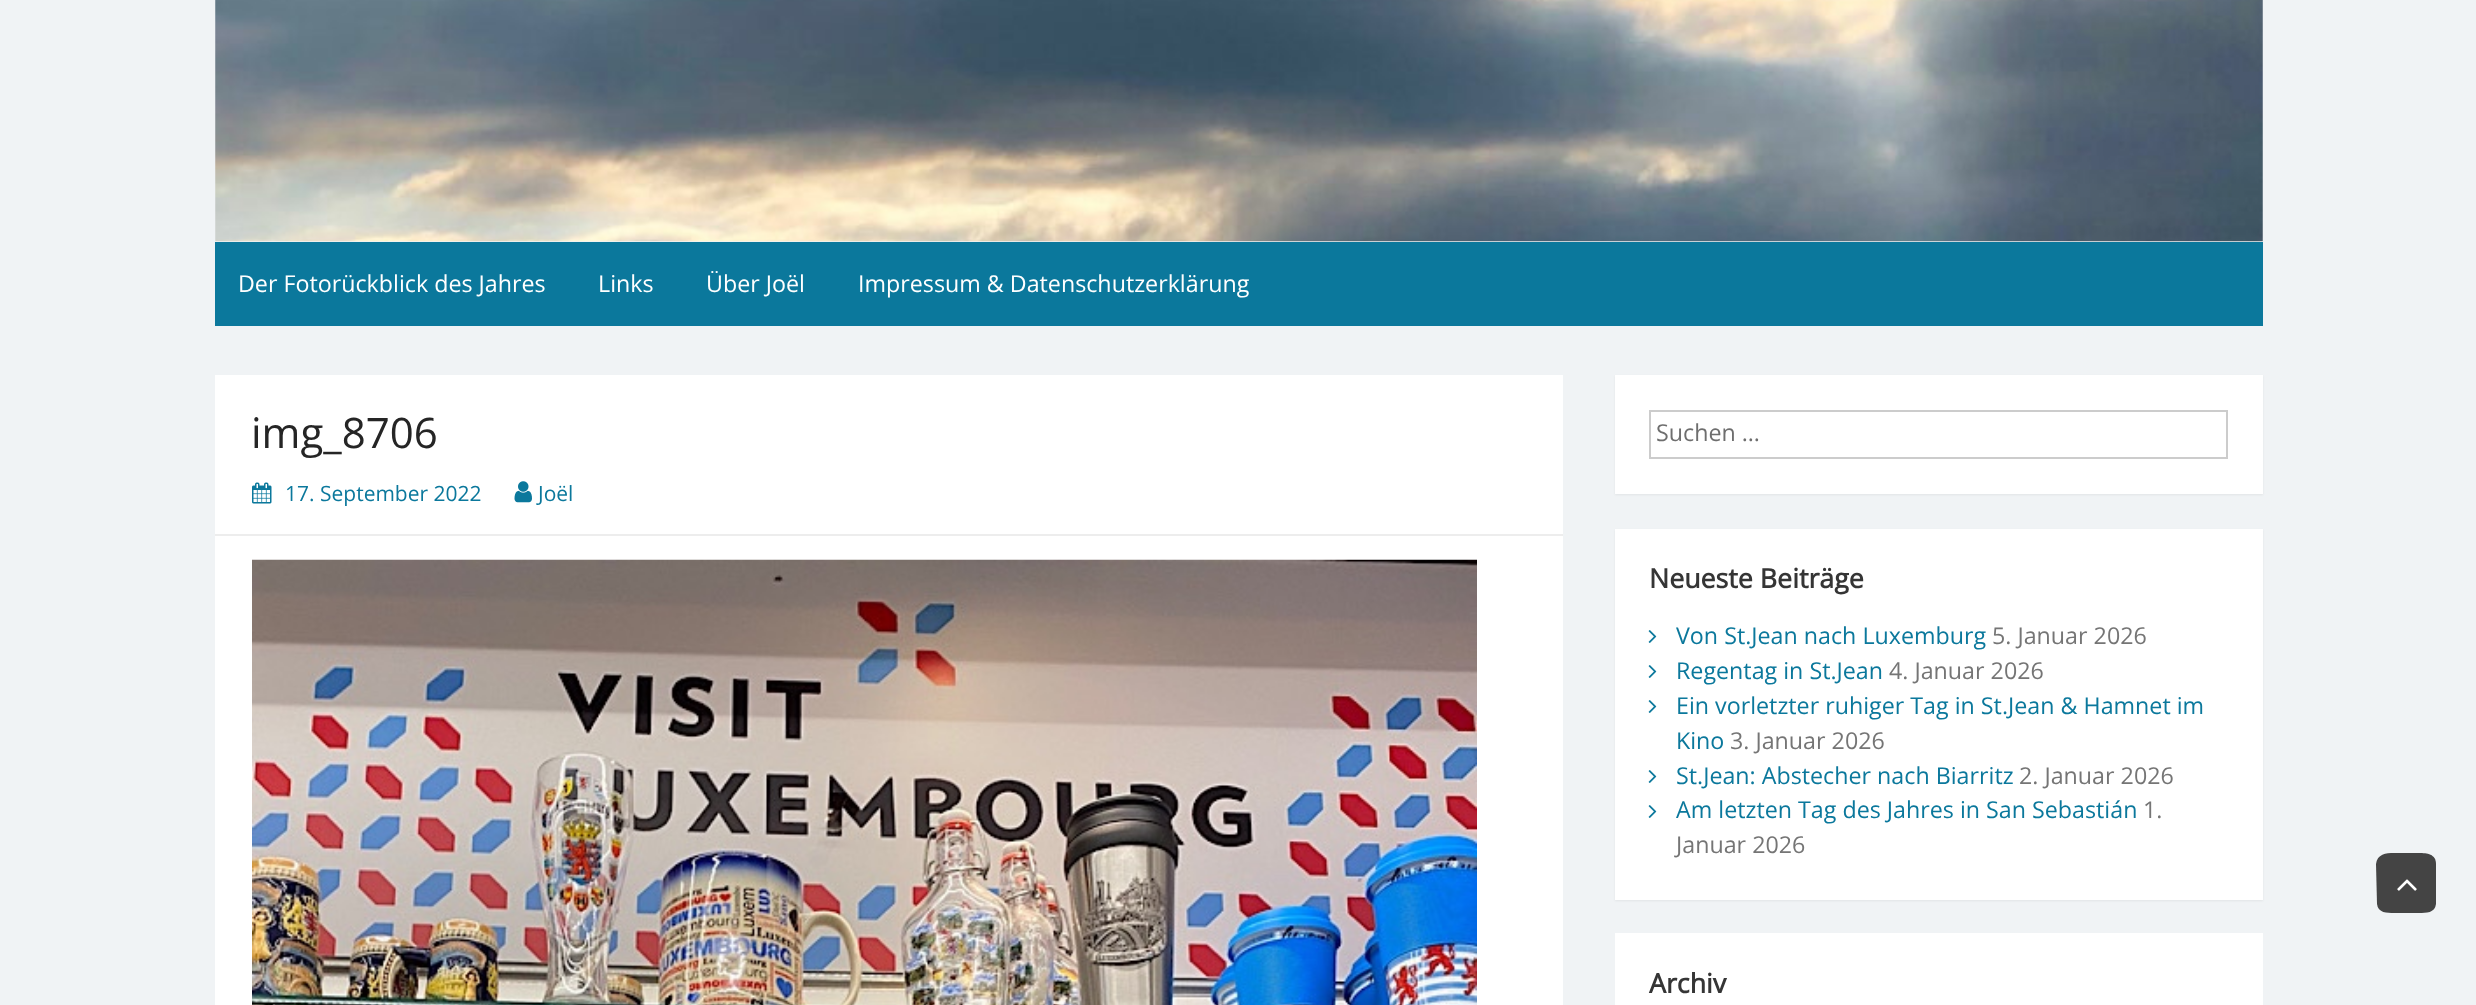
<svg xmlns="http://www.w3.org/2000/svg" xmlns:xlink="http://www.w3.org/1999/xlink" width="2476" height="1005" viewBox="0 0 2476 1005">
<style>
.cls-1{font:23.25px Open Sans;fill:#ffffff}
.cls-2{font:42px Open Sans;fill:#252525}
.cls-3{font:21px Open Sans;fill:#0b789c}
.cls-4{font:23.25px Open Sans;fill:#6e6e6e}
.cls-5{font:bold 26.75px Open Sans;fill:#353535}
.cls-6{font:23.25px Open Sans;fill:#0b789c}
.cls-7{font:23.25px Open Sans;fill:#757575}
</style>
<rect width="100%" height="100%" fill="#f0f3f5"/>
<image xlink:href="image0.png" x="215" y="0" width="2048" height="242"/>
<rect fill="#0b789c" x="215" y="242" width="2048" height="84"/>
<rect fill="#ffffff" x="215" y="375" width="1348" height="630"/>
<rect fill="#ededed" x="215" y="534" width="1348" height="2"/>
<image xlink:href="image1.png" x="252" y="482" width="20" height="22"/>
<image xlink:href="image2.png" x="514" y="481" width="18" height="22"/>
<image xlink:href="image3.png" x="252" y="559" width="1225" height="446"/>
<rect fill="#000000" fill-opacity="0.06" filter="blur(1px)" x="1615" y="376" width="648" height="119"/>
<rect fill="#ffffff" x="1615" y="375" width="648" height="119"/>
<rect fill="none" stroke="#cccccc" stroke-width="2" x="1650" y="411" width="577" height="47"/>
<rect fill="#000000" fill-opacity="0.06" filter="blur(1px)" x="1615" y="530" width="648" height="371"/>
<rect fill="#ffffff" x="1615" y="529" width="648" height="371"/>
<image xlink:href="image4.png" x="1648" y="630" width="9" height="13"/>
<image xlink:href="image4.png" x="1648" y="665" width="9" height="13"/>
<image xlink:href="image4.png" x="1648" y="700" width="9" height="13"/>
<image xlink:href="image4.png" x="1648" y="770" width="9" height="13"/>
<image xlink:href="image4.png" x="1648" y="805" width="9" height="13"/>
<rect fill="#ffffff" x="1615" y="933" width="648" height="72"/>
<path fill="#444444" d="M2436 864V904C2435 913 2426 913 2419 913H2394C2387 913 2378 913 2377 904L2376 864C2377 854 2386 853 2394 853H2419C2427 853 2436 854 2436 864Z"/>
<image xlink:href="image5.png" x="2397" y="879" width="20" height="12"/>
<text class="cls-1" x="238" y="292">Der Fotorückblick des Jahres</text>
<text class="cls-1" x="598" y="292">Links</text>
<text class="cls-1" x="706" y="292">Über Joël</text>
<text class="cls-1" x="858" y="292">Impressum &amp; Datenschutzerklärung</text>
<text class="cls-2" x="251" y="448">img_8706</text>
<text class="cls-3" x="285" y="501">17. September 2022</text>
<text class="cls-3" x="538" y="501">Joël</text>
<text class="cls-4" x="1656" y="441">Suchen …</text>
<text class="cls-5" x="1649" y="588">Neueste Beiträge</text>
<text class="cls-6" x="1676" y="644">Von St.Jean nach Luxemburg</text>
<text class="cls-7" x="1992" y="644">5. Januar 2026</text>
<text class="cls-6" x="1676" y="679">Regentag in St.Jean</text>
<text class="cls-7" x="1889" y="679">4. Januar 2026</text>
<text class="cls-6"><tspan x="1676" y="714">Ein vorletzter ruhiger Tag in St.Jean &amp; Hamnet im</tspan><tspan x="1676" y="749">Kino</tspan></text>
<text class="cls-7" x="1730" y="749">3. Januar 2026</text>
<text class="cls-6" x="1676" y="784">St.Jean: Abstecher nach Biarritz</text>
<text class="cls-7" x="2019" y="784">2. Januar 2026</text>
<text class="cls-6" x="1676" y="818">Am letzten Tag des Jahres in San Sebastián</text>
<text class="cls-7" x="2143" y="818">1.</text>
<text class="cls-7" x="1676" y="853">Januar 2026</text>
<text class="cls-5" x="1649" y="993">Archiv</text>
</svg>
